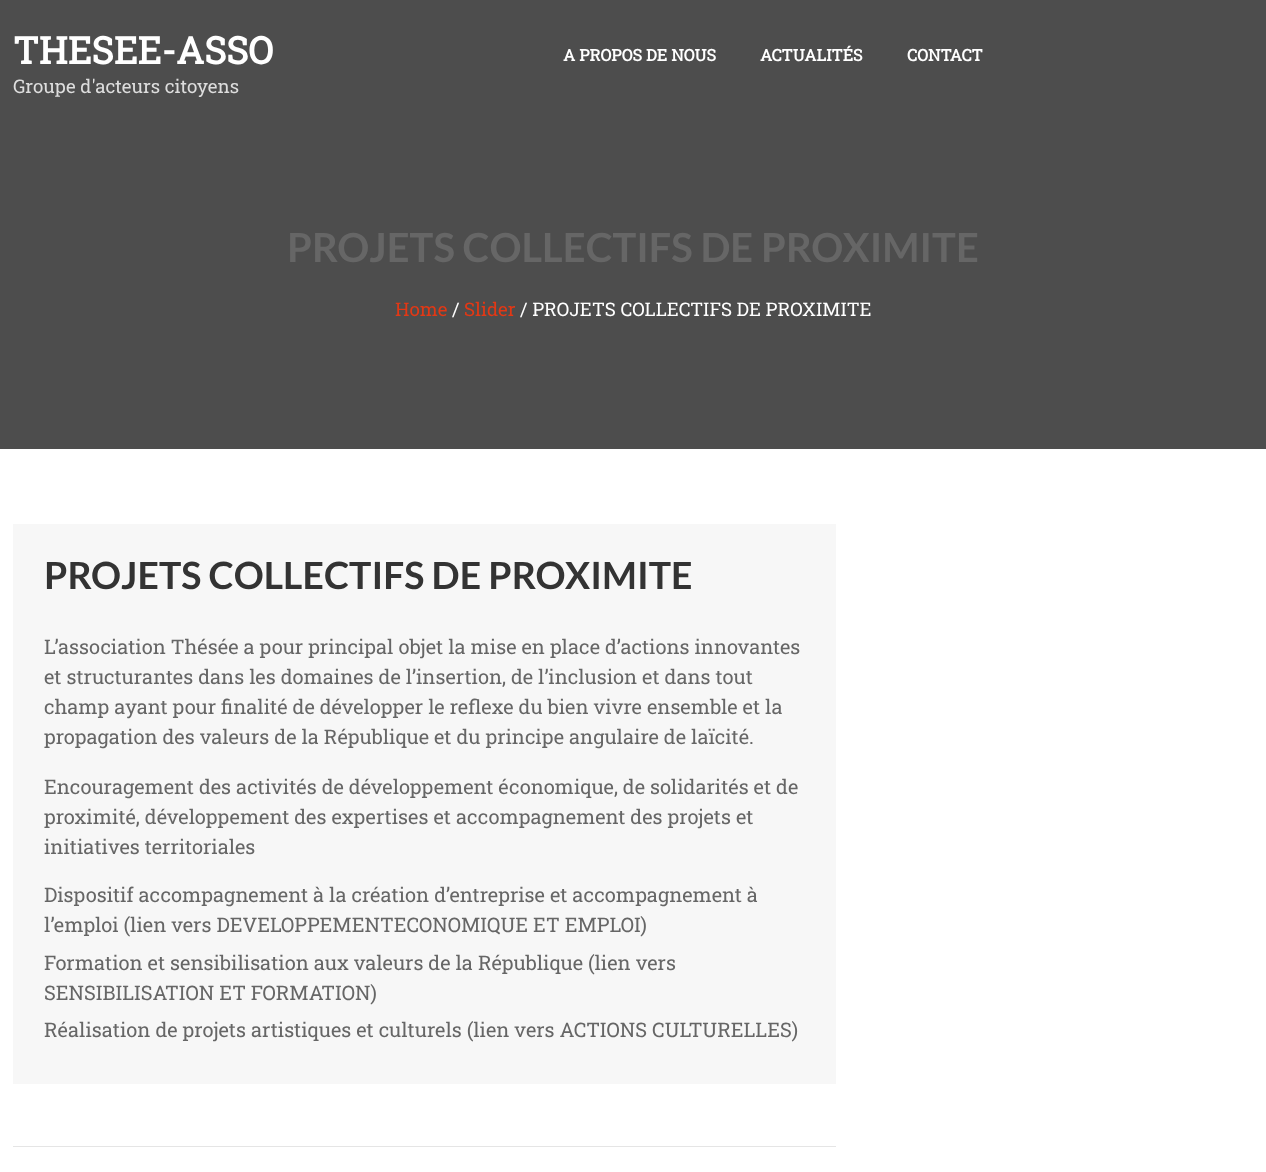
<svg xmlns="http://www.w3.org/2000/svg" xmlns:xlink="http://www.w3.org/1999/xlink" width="1266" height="1172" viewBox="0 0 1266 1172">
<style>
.cls-1{font:bold 37.5px Roboto Slab;fill:#ffffff}
.cls-2{font:18.75px Roboto Slab;fill:#dddddd}
.cls-3{font:bold 16.25px Roboto Slab;fill:#ffffff}
.cls-4{font:bold 40px Lato;fill:#666666}
.cls-5{font:18.75px Roboto Slab;fill:#e23815}
.cls-6{font:18.75px Roboto Slab;fill:#ffffff}
.cls-7{font:bold 37.5px Lato;fill:#333333}
.cls-8{font:20px Roboto Slab;fill:#666666}
</style>
<rect width="100%" height="100%" fill="#ffffff"/>
<rect fill="#4d4d4d" x="0" y="0" width="1266" height="449"/>
<rect fill="#f7f7f7" x="13" y="524" width="823" height="560"/>
<rect fill="#e5e5e5" x="13" y="1146" width="823" height="1"/>
<text class="cls-1" x="13" y="64">THESEE-ASSO</text>
<text class="cls-2" x="13" y="93">Groupe d'acteurs citoyens</text>
<text class="cls-3" x="563" y="61">A PROPOS DE NOUS</text>
<text class="cls-3" x="760" y="61">ACTUALITÉS</text>
<text class="cls-3" x="907" y="61">CONTACT</text>
<text class="cls-4" x="287" y="262">PROJETS COLLECTIFS DE PROXIMITE</text>
<text class="cls-5" x="395" y="316">Home</text>
<text class="cls-6" x="452" y="316">/</text>
<text class="cls-5" x="464" y="316">Slider</text>
<text class="cls-6" x="520" y="316">/ PROJETS COLLECTIFS DE PROXIMITE</text>
<text class="cls-7" x="44" y="589">PROJETS COLLECTIFS DE PROXIMITE</text>
<text class="cls-8"><tspan x="44" y="654">L’association Thésée a pour principal objet la mise en place d’actions innovantes</tspan><tspan x="44" y="684">et structurantes dans les domaines de l’insertion, de l’inclusion et dans tout</tspan><tspan x="44" y="714">champ ayant pour finalité de développer le reflexe du bien vivre ensemble et la</tspan><tspan x="44" y="744">propagation des valeurs de la République et du principe angulaire de laïcité.</tspan></text>
<text class="cls-8"><tspan x="44" y="794">Encouragement des activités de développement économique, de solidarités et de</tspan><tspan x="44" y="824">proximité, développement des expertises et accompagnement des projets et</tspan><tspan x="44" y="854">initiatives territoriales</tspan></text>
<text class="cls-8"><tspan x="44" y="902">Dispositif accompagnement à la création d’entreprise et accompagnement à</tspan><tspan x="44" y="932">l’emploi (lien vers DEVELOPPEMENTECONOMIQUE ET EMPLOI)</tspan><tspan x="44" y="970">Formation et sensibilisation aux valeurs de la République (lien vers</tspan><tspan x="44" y="1000">SENSIBILISATION ET FORMATION)</tspan><tspan x="44" y="1037">Réalisation de projets artistiques et culturels (lien vers ACTIONS CULTURELLES)</tspan></text>
</svg>
